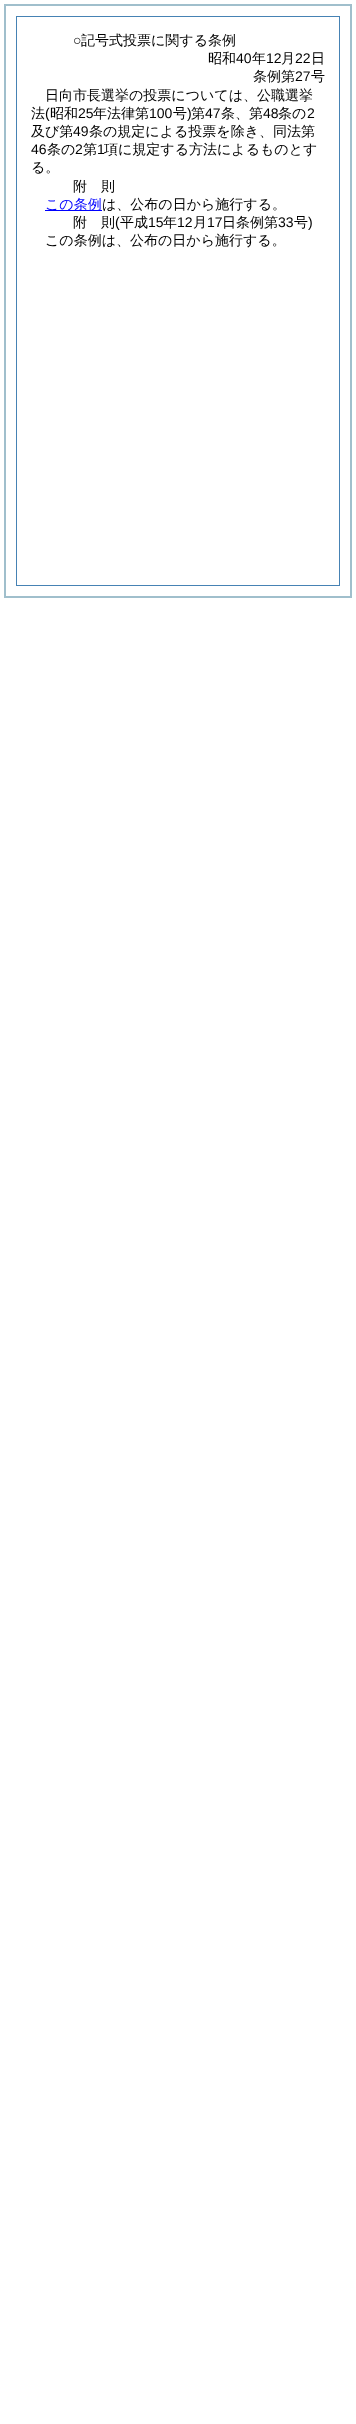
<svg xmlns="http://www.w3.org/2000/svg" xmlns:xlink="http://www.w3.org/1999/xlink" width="356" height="2424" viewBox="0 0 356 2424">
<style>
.cls-1{font:14px Liberation Sans;fill:#000000}
.cls-2{font:500 14px WenQuanYi Zen Hei;fill:#000000}
.cls-3{font:500 14px WenQuanYi Zen Hei;letter-spacing:14px;fill:#000000}
.cls-4{font:500 14px WenQuanYi Zen Hei;fill:#0000ff}
</style>
<rect width="100%" height="100%" fill="#ffffff"/>
<rect fill="none" stroke="#a0bfcc" stroke-width="2" x="5" y="5" width="346" height="592"/>
<rect fill="none" stroke="#4682b4" x="16.5" y="16.5" width="323" height="569"/>
<rect fill="#0000ff" x="45" y="210" width="57" height="1"/>
<text class="cls-1" x="73" y="45">○</text>
<text class="cls-2" x="81" y="45">記号式投票に関する条例</text>
<text class="cls-2" x="208" y="63">昭和</text>
<text class="cls-1" x="236" y="63">40</text>
<text class="cls-2" x="252" y="63">年</text>
<text class="cls-1" x="266" y="63">12</text>
<text class="cls-2" x="281" y="63">月</text>
<text class="cls-1" x="295" y="63">22</text>
<text class="cls-2" x="311" y="63">日</text>
<text class="cls-2" x="253" y="81">条例第</text>
<text class="cls-1" x="295" y="81">27</text>
<text class="cls-2" x="311" y="81">号</text>
<text class="cls-2" x="45" y="100">日向市長選挙の投票については、公職選挙</text>
<text class="cls-2" x="31" y="118">法</text>
<text class="cls-1" x="45" y="118">(</text>
<text class="cls-2" x="50" y="118">昭和</text>
<text class="cls-1" x="78" y="118">25</text>
<text class="cls-2" x="93" y="118">年法律第</text>
<text class="cls-1" x="149" y="118">100</text>
<text class="cls-2" x="173" y="118">号</text>
<text class="cls-1" x="187" y="118">)</text>
<text class="cls-2" x="191" y="118">第</text>
<text class="cls-1" x="205" y="118">47</text>
<text class="cls-2" x="221" y="118">条、第</text>
<text class="cls-1" x="263" y="118">48</text>
<text class="cls-2" x="278" y="118">条の</text>
<text class="cls-1" x="307" y="118">2</text>
<text class="cls-2" x="31" y="136">及び第</text>
<text class="cls-1" x="73" y="136">49</text>
<text class="cls-2" x="89" y="136">条の規定による投票を除き、同法第</text>
<text class="cls-1" x="31" y="154">46</text>
<text class="cls-2" x="47" y="154">条の</text>
<text class="cls-1" x="75" y="154">2</text>
<text class="cls-2" x="83" y="154">第</text>
<text class="cls-1" x="97" y="154">1</text>
<text class="cls-2" x="104" y="154">項に規定する方法によるものとす</text>
<text class="cls-2" x="31" y="172">る。</text>
<text class="cls-3" x="73" y="191">附</text>
<text class="cls-2" x="101" y="191">則</text>
<text class="cls-4" x="45" y="209">この条例</text>
<text class="cls-2" x="102" y="209">は、公布の日から施行する。</text>
<text class="cls-3" x="73" y="227">附</text>
<text class="cls-2" x="101" y="227">則</text>
<text class="cls-1" x="115" y="227">(</text>
<text class="cls-2" x="120" y="227">平成</text>
<text class="cls-1" x="148" y="227">15</text>
<text class="cls-2" x="163" y="227">年</text>
<text class="cls-1" x="177" y="227">12</text>
<text class="cls-2" x="193" y="227">月</text>
<text class="cls-1" x="207" y="227">17</text>
<text class="cls-2" x="222" y="227">日条例第</text>
<text class="cls-1" x="278" y="227">33</text>
<text class="cls-2" x="294" y="227">号</text>
<text class="cls-1" x="308" y="227">)</text>
<text class="cls-2" x="45" y="245">この条例は、公布の日から施行する。</text>
</svg>
